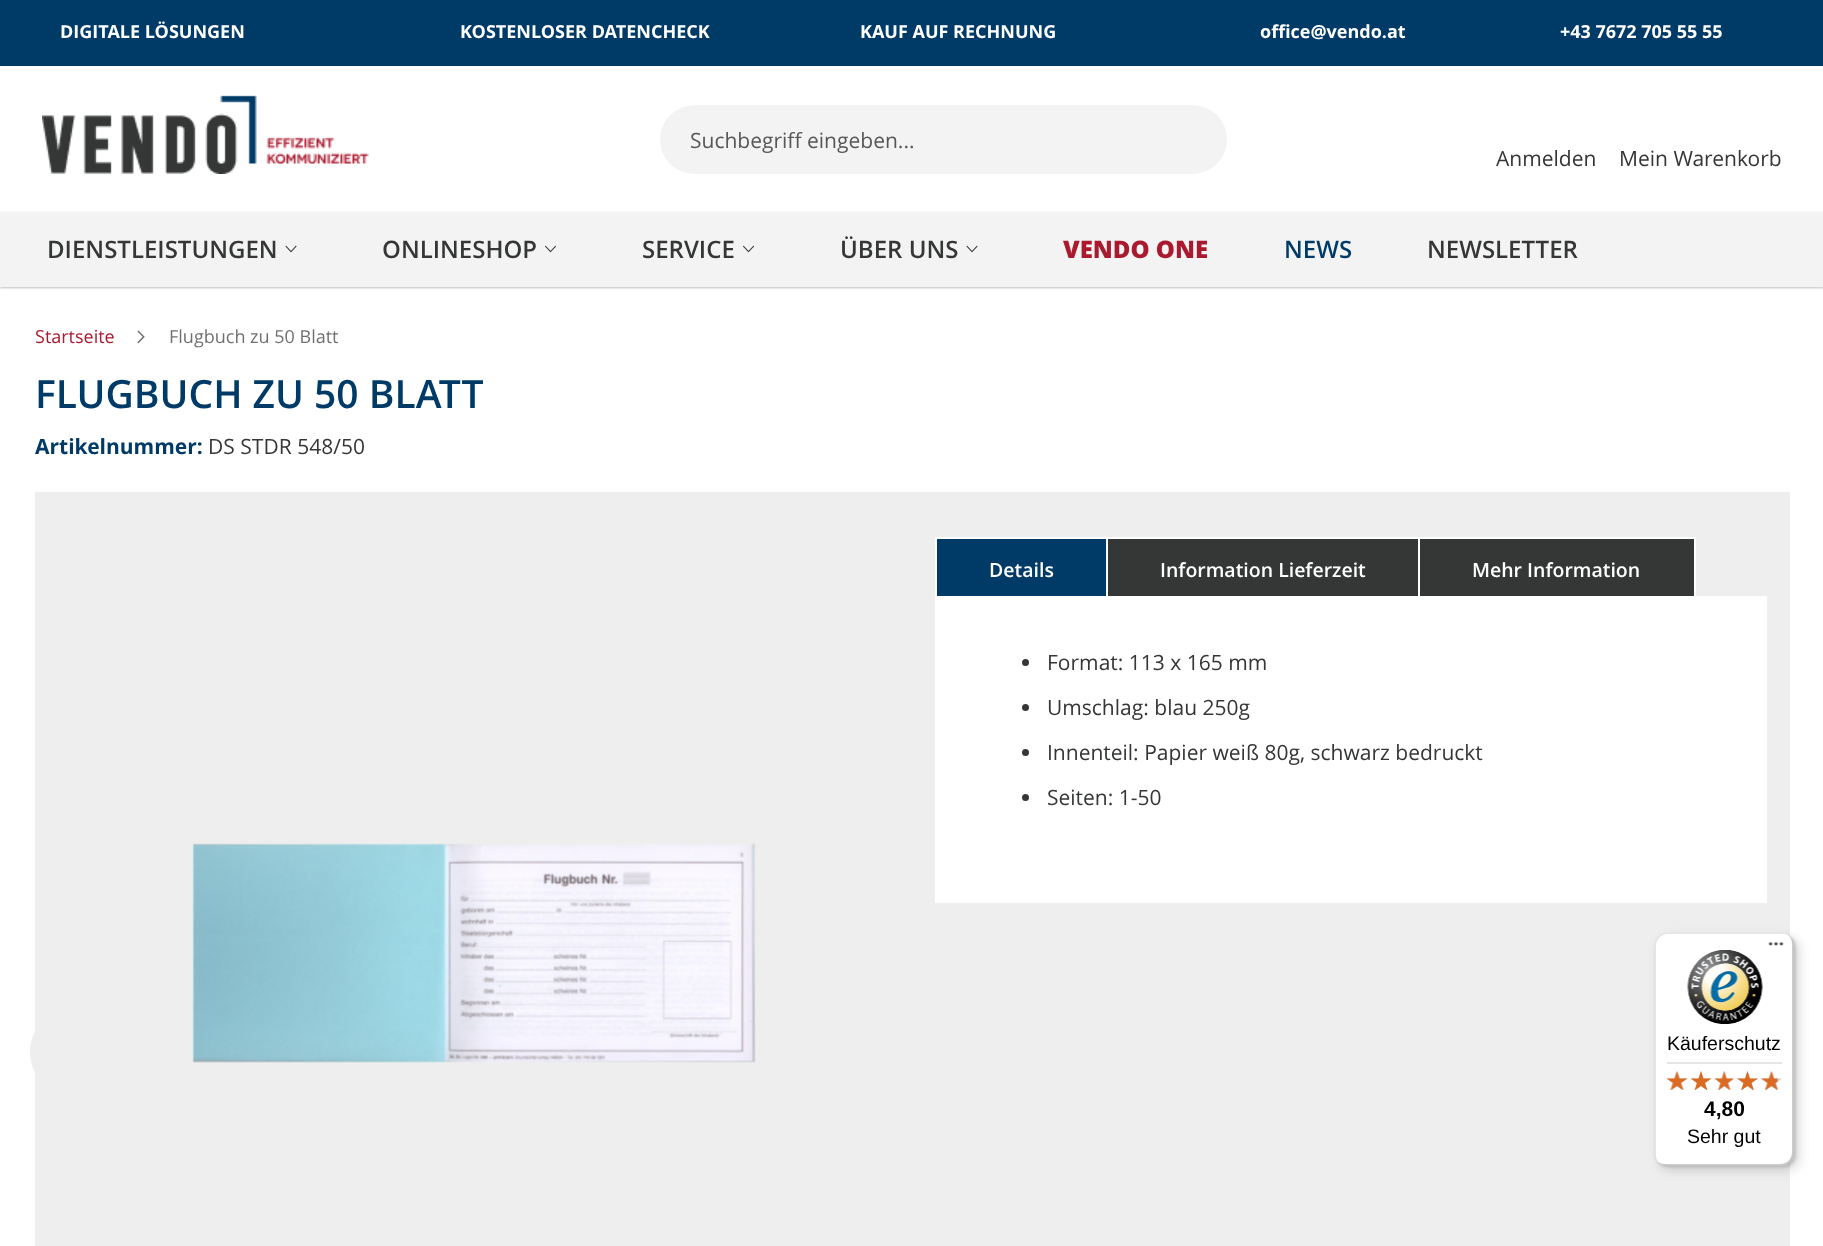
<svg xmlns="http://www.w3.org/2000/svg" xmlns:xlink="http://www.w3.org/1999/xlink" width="1823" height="1246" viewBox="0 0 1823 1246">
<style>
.cls-1{font:bold 18px Open Sans;fill:#ffffff}
.cls-2{font:21px Open Sans;fill:#575757}
.cls-3{font:21px Open Sans;fill:#343735}
.cls-4{font:600 24px Open Sans;fill:#343735}
.cls-5{font:800 24px Open Sans;fill:#aa1a2f}
.cls-6{font:600 24px Open Sans;fill:#003b68}
.cls-7{font:18px Open Sans;fill:#aa1a2f}
.cls-8{font:18px Open Sans;fill:#707070}
.cls-9{font:600 39px Open Sans;fill:#003b68}
.cls-10{font:bold 21px Open Sans;fill:#003b68}
.cls-11{font:600 19.5px Open Sans;fill:#ffffff}
.cls-12{font:19.5px Liberation Sans;fill:#000000}
.cls-13{font:bold 21px Liberation Sans;fill:#000000}
</style>
<rect width="100%" height="100%" fill="#ffffff"/>
<rect fill="#003b68" x="0" y="0" width="1823" height="66"/>
<image xlink:href="image0.png" x="42" y="95" width="327" height="79"/>
<rect fill="#f3f3f3" x="660" y="105" width="567" height="69" rx="34.5"/>
<rect fill="#000000" fill-opacity="0.25" filter="blur(1px)" x="0" y="213" width="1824" height="75"/>
<rect fill="#f3f3f3" x="0" y="212" width="1823" height="75"/>
<image xlink:href="image1.png" x="285" y="245" width="12" height="8"/>
<image xlink:href="image2.png" x="545" y="245" width="11" height="8"/>
<image xlink:href="image2.png" x="743" y="245" width="11" height="8"/>
<image xlink:href="image1.png" x="966" y="245" width="12" height="8"/>
<image xlink:href="image3.png" x="137" y="330" width="8" height="14"/>
<rect fill="#eeeeee" x="35" y="492" width="1755" height="754"/>
<rect fill="#003b68" x="937" y="539" width="169" height="57"/>
<rect fill="#ffffff" x="935" y="537" width="760" height="2"/>
<rect fill="#ffffff" x="935" y="537" width="2" height="60"/>
<rect fill="#343735" x="1108" y="539" width="310" height="57"/>
<rect fill="#ffffff" x="1106" y="537" width="2" height="60"/>
<rect fill="#343735" x="1420" y="539" width="274" height="57"/>
<rect fill="#ffffff" x="1694" y="537" width="2" height="60"/>
<rect fill="#ffffff" x="1418" y="537" width="2" height="60"/>
<rect fill="#ffffff" x="935" y="596" width="832" height="307"/>
<circle fill="#343735" cx="1025.5" cy="662.5" r="3.5"/>
<circle fill="#343735" cx="1025.5" cy="707.5" r="3.5"/>
<circle fill="#343735" cx="1025.5" cy="752.5" r="3.5"/>
<circle fill="#343735" cx="1025.5" cy="797.5" r="3.5"/>
<image xlink:href="image4.png" x="192" y="843" width="564" height="220"/>
<circle fill="#eeeeee" cx="75" cy="1052" r="45"/>
<rect fill="#000000" fill-opacity="0.15" filter="blur(6px)" x="1659" y="938" width="140" height="232" rx="12"/>
<rect fill="#000000" fill-opacity="0.15" filter="blur(1.5px)" x="1656" y="935" width="140" height="232" rx="12"/>
<rect fill="#ffffff" x="1655" y="933" width="139" height="233" rx="12"/>
<path fill="#000000" fill-opacity="0.1" d="M1668 934H1784C1786 934 1788 935 1789 936C1787 934 1785 933 1782 933H1667C1660 933 1655 938 1655 945V1154C1655 1157 1656 1160 1658 1162C1657 1160 1656 1158 1656 1155V946C1656 940 1661 934 1668 934Z"/>
<path fill="#000000" fill-opacity="0.2" d="M1658 1162C1660 1164 1663 1166 1667 1166H1782C1789 1166 1794 1161 1794 1154V945C1794 940 1791 936 1787 934C1790 936 1792 940 1792 944V1152C1792 1159 1787 1164 1780 1164H1665C1662 1164 1660 1163 1658 1162Z"/>
<path fill="#323232" fill-opacity="0.2" d="M1658 1162C1660 1164 1663 1166 1667 1166H1782C1789 1166 1794 1161 1794 1154V945C1794 942 1793 939 1791 937C1792 939 1793 941 1793 944V1153C1793 1159 1788 1165 1781 1165H1666C1663 1165 1660 1164 1658 1162Z"/>
<path fill="#ffffff" fill-opacity="0.3" d="M1658 1162C1660 1164 1663 1166 1667 1166H1782C1789 1166 1794 1161 1794 1154V945C1794 941 1792 938 1790 936C1792 938 1793 941 1793 944V1153C1793 1159 1788 1165 1781 1165H1666C1663 1165 1660 1164 1658 1162Z"/>
<image xlink:href="image5.png" x="1768" y="942" width="16" height="4"/>
<image xlink:href="image6.png" x="1687" y="950" width="76" height="75"/>
<rect fill="#e5e5e5" x="1667" y="1062" width="115" height="2"/>
<image xlink:href="image7.png" x="1666" y="1071" width="22" height="19"/>
<image xlink:href="image8.png" x="1691" y="1071" width="20" height="19"/>
<image xlink:href="image9.png" x="1714" y="1071" width="20" height="19"/>
<image xlink:href="image10.png" x="1737" y="1071" width="21" height="19"/>
<image xlink:href="image11.png" x="1761" y="1071" width="21" height="19"/>
<image xlink:href="image12.png" x="1666" y="1071" width="22" height="19"/>
<image xlink:href="image13.png" x="1691" y="1071" width="20" height="20"/>
<image xlink:href="image14.png" x="1714" y="1071" width="20" height="19"/>
<image xlink:href="image15.png" x="1737" y="1071" width="21" height="20"/>
<image xlink:href="image16.png" x="1761" y="1071" width="17" height="19"/>
<text class="cls-1" x="60" y="38">DIGITALE LÖSUNGEN</text>
<text class="cls-1" x="460" y="38">KOSTENLOSER DATENCHECK</text>
<text class="cls-1" x="860" y="38">KAUF AUF RECHNUNG</text>
<text class="cls-1" x="1260" y="38">office@vendo.at</text>
<text class="cls-1" x="1560" y="38">+43 7672 705 55 55</text>
<text class="cls-2" x="690" y="148">Suchbegriff eingeben...</text>
<text class="cls-3" x="1496" y="166">Anmelden</text>
<text class="cls-3" x="1619" y="166">Mein Warenkorb</text>
<text class="cls-4" x="47" y="258">DIENSTLEISTUNGEN</text>
<text class="cls-4" x="382" y="258">ONLINESHOP</text>
<text class="cls-4" x="642" y="258">SERVICE</text>
<text class="cls-4" x="840" y="258">ÜBER UNS</text>
<text class="cls-5" x="1063" y="258">VENDO ONE</text>
<text class="cls-6" x="1284" y="258">NEWS</text>
<text class="cls-4" x="1427" y="258">NEWSLETTER</text>
<text class="cls-7" x="35" y="343">Startseite</text>
<text class="cls-8" x="169" y="343">Flugbuch zu 50 Blatt</text>
<text class="cls-9" x="35" y="408">FLUGBUCH ZU 50 BLATT</text>
<text class="cls-10" x="35" y="454">Artikelnummer:</text>
<text class="cls-3" x="208" y="454">DS STDR 548/50</text>
<text class="cls-11" x="989" y="577">Details</text>
<text class="cls-11" x="1160" y="577">Information Lieferzeit</text>
<text class="cls-11" x="1472" y="577">Mehr Information</text>
<text class="cls-3" x="1047" y="670">Format: 113 x 165 mm</text>
<text class="cls-3" x="1047" y="715">Umschlag: blau 250g</text>
<text class="cls-3" x="1047" y="760">Innenteil: Papier weiß 80g, schwarz bedruckt</text>
<text class="cls-3" x="1047" y="805">Seiten: 1-50</text>
<text class="cls-12" x="1667" y="1050">Käuferschutz</text>
<text class="cls-13" x="1704" y="1116">4,80</text>
<text class="cls-12" x="1687" y="1143">Sehr gut</text>
</svg>
